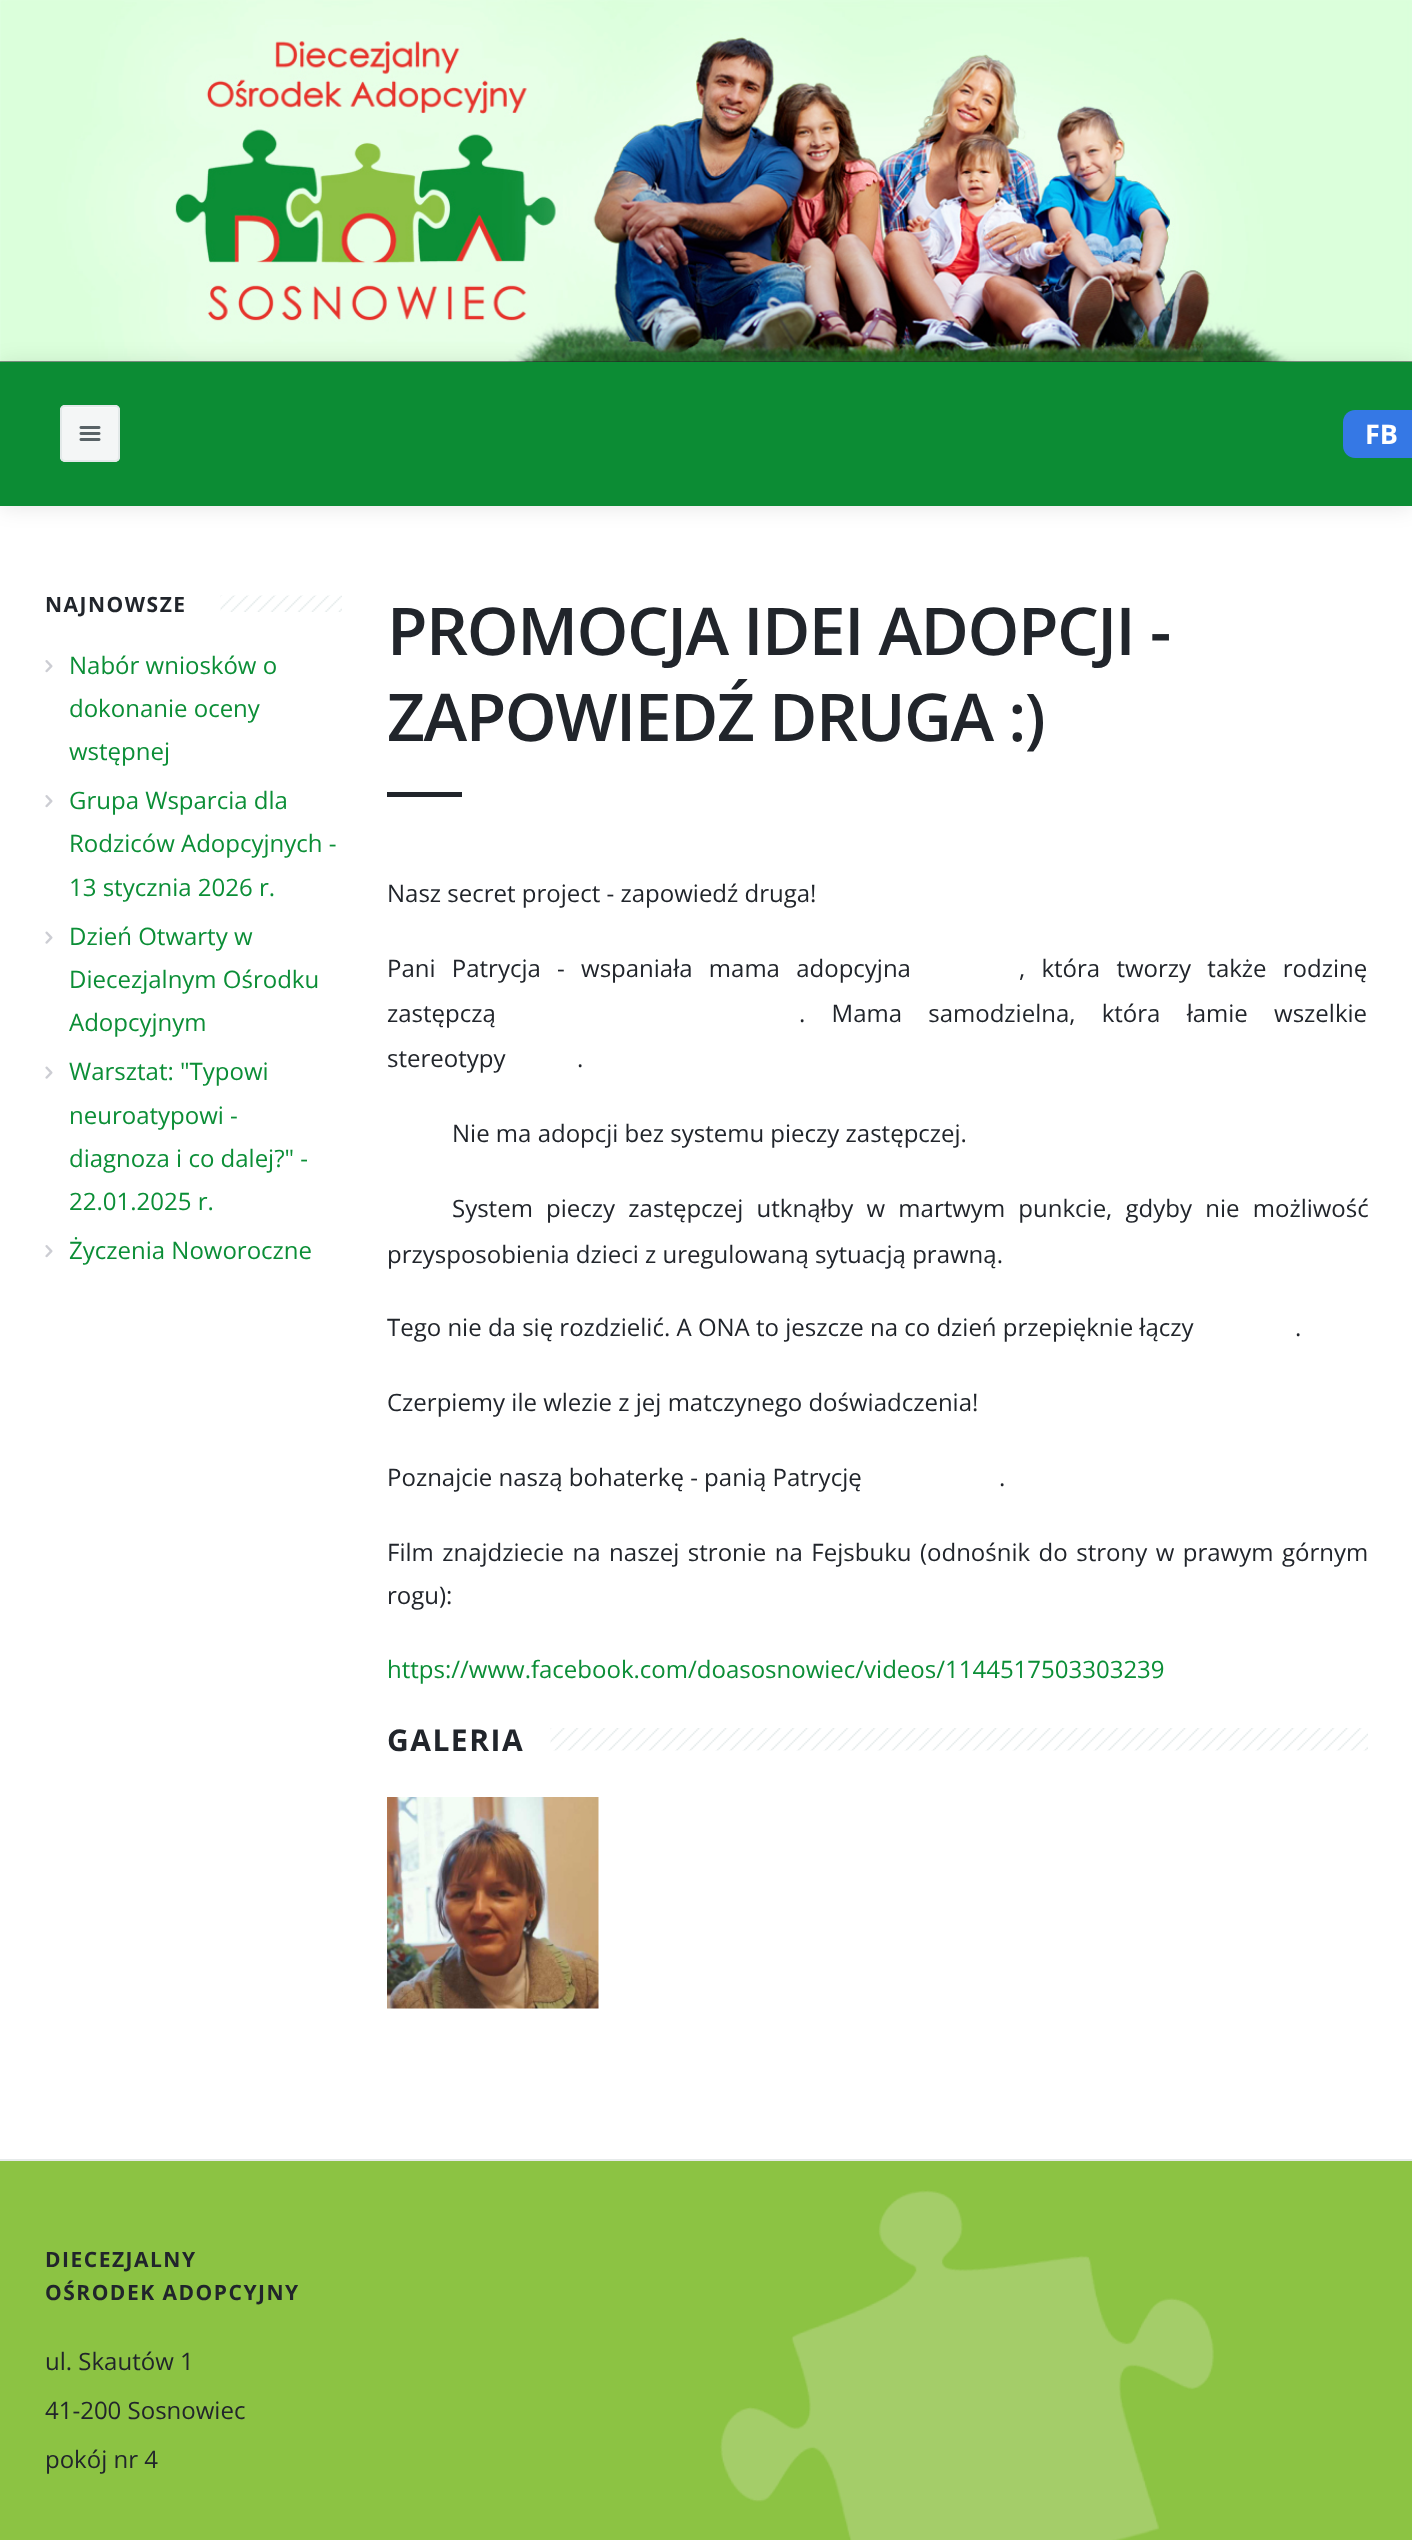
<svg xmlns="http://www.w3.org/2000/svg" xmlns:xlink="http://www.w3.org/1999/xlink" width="1412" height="2540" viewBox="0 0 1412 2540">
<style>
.cls-1{font:bold 27px Open Sans;fill:#ffffff}
.cls-2{font:bold 21px Open Sans;letter-spacing:1.5px;fill:#21252b}
.cls-3{font:24px Open Sans;fill:#0b8e36}
.cls-4{font:600 66px Open Sans;letter-spacing:-1.5px;fill:#21252b}
.cls-5{font:24px Open Sans;fill:#21252b}
.cls-6{font:bold 30px Open Sans;letter-spacing:1.5px;fill:#21252b}
</style>
<rect width="100%" height="100%" fill="#ffffff"/>
<rect fill="#21252b" x="0" y="361" width="1412" height="1"/>
<image xlink:href="image0.png" x="0" y="0" width="1412" height="362"/>
<rect fill="#000000" fill-opacity="0.1" filter="blur(11px)" x="0" y="363" width="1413" height="144"/>
<rect fill="#0c8c34" x="0" y="362" width="1412" height="144"/>
<rect fill="#f4f6f6" x="60" y="405" width="60" height="57" rx="5"/>
<path fill="#f8fafa" d="M64 408H107C110 408 118 406 118 411V460C119 460 119 459 119 458V410C119 408 118 407 116 407H65C63 407 62 408 62 410V411C62 409 63 408 64 408Z"/>
<rect fill="none" stroke="#e3e9e9" stroke-width="2" x="61" y="406" width="58" height="55" rx="4"/>
<image xlink:href="image1.png" x="79" y="426" width="22" height="15"/>
<path fill="#3578e5" d="M1355 410H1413V458H1355C1348.5 458 1343 452.5 1343 446V422C1343 415.5 1348.5 410 1355 410Z"/>
<image xlink:href="image2.png" x="220" y="595" width="122" height="17"/>
<image xlink:href="image3.png" x="45" y="660" width="8" height="13"/>
<image xlink:href="image3.png" x="45" y="795" width="8" height="13"/>
<image xlink:href="image4.png" x="45" y="931" width="8" height="13"/>
<image xlink:href="image4.png" x="45" y="1066" width="8" height="13"/>
<image xlink:href="image3.png" x="45" y="1245" width="8" height="13"/>
<rect fill="#21252b" x="387" y="792" width="75" height="5"/>
<image xlink:href="image5.png" x="550" y="1728" width="818" height="23"/>
<image xlink:href="image6.png" x="387" y="1797" width="212" height="212"/>
<rect fill="#8cc343" x="0" y="2161" width="1412" height="379"/>
<image xlink:href="image7.png" x="720" y="2190" width="494" height="350"/>
<rect fill="#e6eaea" x="0" y="2159" width="1412" height="2"/>
<text class="cls-1" x="1365" y="444">FB</text>
<text class="cls-2" x="45" y="612">NAJNOWSZE</text>
<text class="cls-3"><tspan x="69" y="674">Nabór wniosków o</tspan><tspan x="69" y="717">dokonanie oceny</tspan><tspan x="69" y="760">wstępnej</tspan></text>
<text class="cls-3"><tspan x="69" y="809">Grupa Wsparcia dla</tspan><tspan x="69" y="852">Rodziców Adopcyjnych -</tspan><tspan x="69" y="896">13 stycznia 2026 r.</tspan></text>
<text class="cls-3"><tspan x="69" y="945">Dzień Otwarty w</tspan><tspan x="69" y="988">Diecezjalnym Ośrodku</tspan><tspan x="69" y="1031">Adopcyjnym</tspan></text>
<text class="cls-3"><tspan x="69" y="1080">Warsztat: "Typowi</tspan><tspan x="69" y="1124">neuroatypowi -</tspan><tspan x="69" y="1167">diagnoza i co dalej?" -</tspan><tspan x="69" y="1210">22.01.2025 r.</tspan></text>
<text class="cls-3" x="69" y="1259">Życzenia Noworoczne</text>
<text class="cls-4"><tspan x="387" y="655">PROMOCJA IDEI ADOPCJI -</tspan><tspan x="387" y="741">ZAPOWIEDŹ DRUGA :)</tspan></text>
<text class="cls-5" x="387" y="902">Nasz secret project - zapowiedź druga!</text>
<text class="cls-5" x="387" y="977" word-spacing="10">Pani Patrycja - wspaniała mama adopcyjna</text>
<text class="cls-5" x="1019" y="977" word-spacing="10">, która tworzy także rodzinę</text>
<text class="cls-5" x="387" y="1022">zastępczą</text>
<text class="cls-5" x="799" y="1022" word-spacing="20">. Mama samodzielna, która łamie wszelkie</text>
<text class="cls-5" x="387" y="1067">stereotypy</text>
<text class="cls-5" x="577" y="1067">.</text>
<text class="cls-5" x="452" y="1142">Nie ma adopcji bez systemu pieczy zastępczej.</text>
<text class="cls-5" x="452" y="1217" word-spacing="7">System pieczy zastępczej utknąłby w martwym punkcie, gdyby nie możliwość</text>
<text class="cls-5" x="387" y="1263">przysposobienia dzieci z uregulowaną sytuacją prawną.</text>
<text class="cls-5" x="387" y="1336">Tego nie da się rozdzielić. A ONA to jeszcze na co dzień przepięknie łączy</text>
<text class="cls-5" x="1295" y="1336">.</text>
<text class="cls-5" x="387" y="1411">Czerpiemy ile wlezie z jej matczynego doświadczenia!</text>
<text class="cls-5" x="387" y="1486">Poznajcie naszą bohaterkę - panią Patrycję</text>
<text class="cls-5" x="999" y="1486">.</text>
<text class="cls-5"><tspan x="387" y="1561" word-spacing="2.25">Film znajdziecie na naszej stronie na Fejsbuku (odnośnik do strony w prawym górnym</tspan><tspan x="387" y="1604">rogu):</tspan></text>
<text class="cls-3" x="387" y="1678">https://www.facebook.com/doasosnowiec/videos/1144517503303239</text>
<text class="cls-6" x="387" y="1751">GALERIA</text>
<text class="cls-2"><tspan x="45" y="2267">DIECEZJALNY</tspan><tspan x="45" y="2300">OŚRODEK ADOPCYJNY</tspan></text>
<text class="cls-5" x="45" y="2370">ul. Skautów 1</text>
<text class="cls-5" x="45" y="2419">41-200 Sosnowiec</text>
<text class="cls-5" x="45" y="2468">pokój nr 4</text>
</svg>
